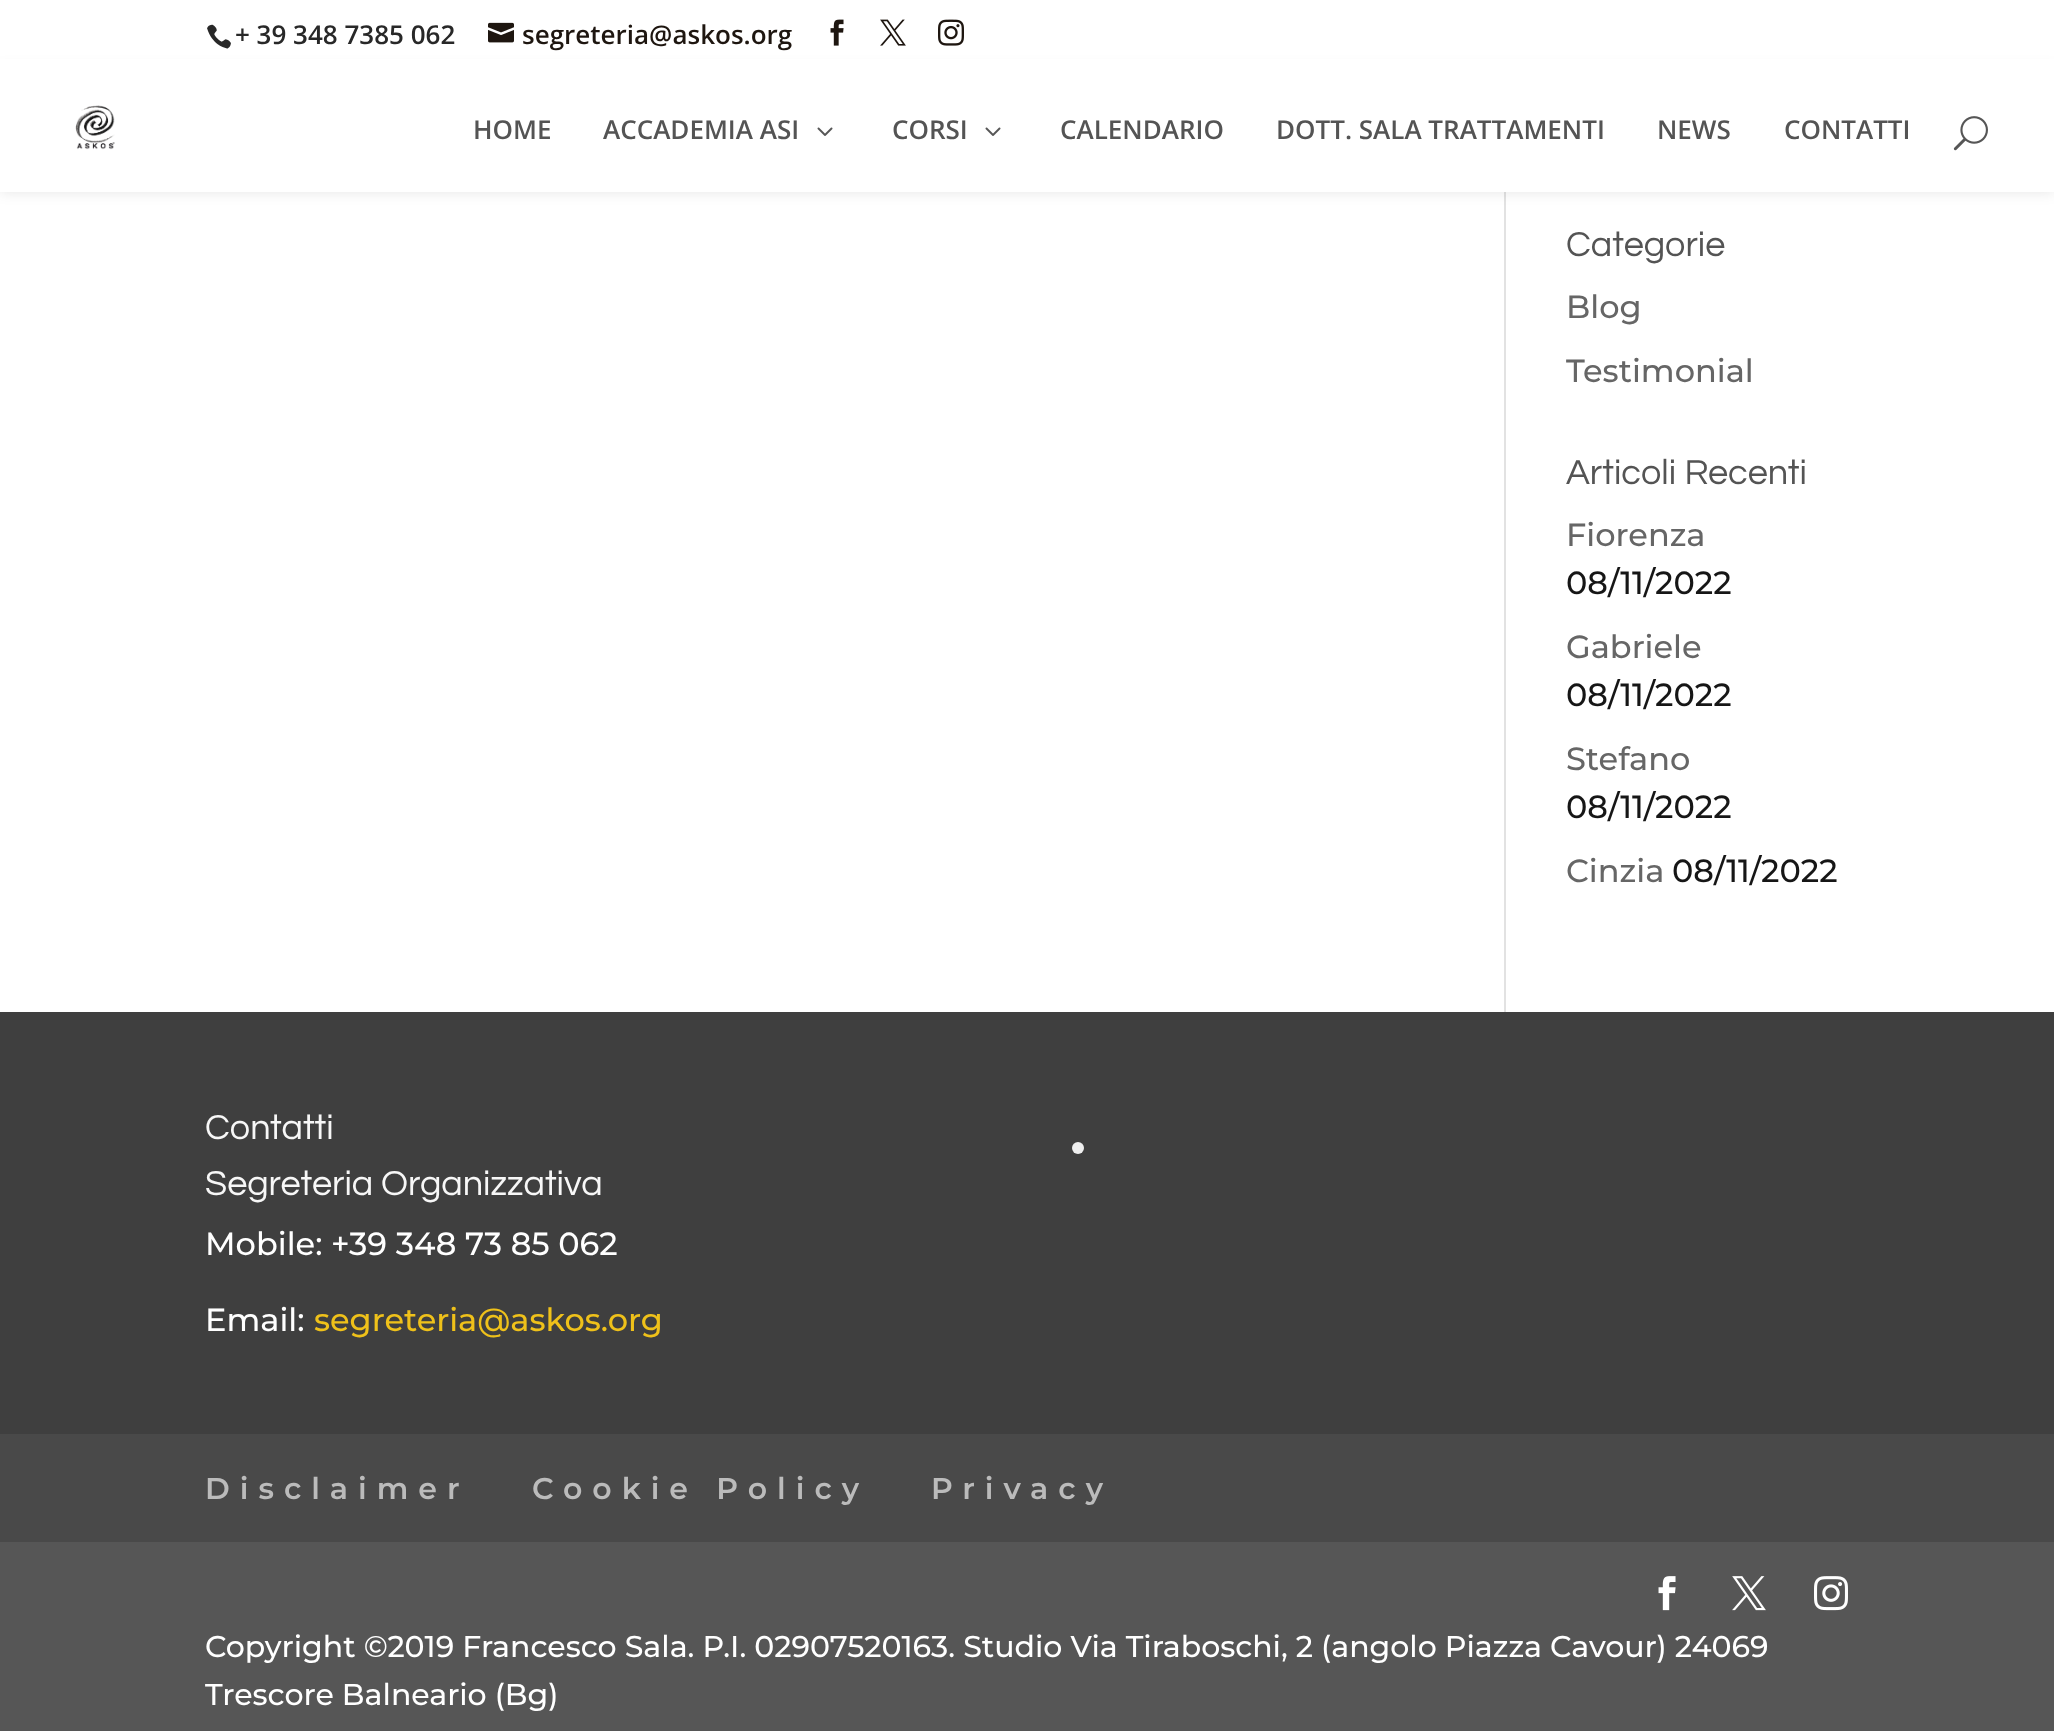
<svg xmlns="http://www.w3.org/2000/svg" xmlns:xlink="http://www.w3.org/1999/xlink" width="2054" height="1731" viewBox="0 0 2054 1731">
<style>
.cls-1{font:600 26px Open Sans;fill:#282828}
.cls-2{font:600 26px Open Sans;fill:#1e1610}
.cls-3{font:600 26px Open Sans;fill:#545454}
.cls-4{font:36px Questrial;fill:#545454}
.cls-5{font:500 32px Montserrat;fill:#666666}
.cls-6{font:500 32px Montserrat;fill:#161616}
.cls-7{font:36px Questrial;fill:#f7f7f7}
.cls-8{font:500 32px Montserrat;fill:#ffffff}
.cls-9{font:500 32px Montserrat;fill:#efc11a}
.cls-10{font:600 30px Montserrat;letter-spacing:10px;fill:#bbbbbb}
.cls-11{font:500 30px Montserrat;fill:#ffffff}
</style>
<rect width="100%" height="100%" fill="#ffffff"/>
<rect fill="#e2e2e2" x="1504" y="192" width="2" height="820"/>
<rect fill="#000000" fill-opacity="0.1" filter="blur(7px)" x="0" y="68" width="2054" height="124"/>
<image xlink:href="image0.png" x="207" y="24" width="24" height="25"/>
<image xlink:href="image1.png" x="488" y="22" width="26" height="21"/>
<image xlink:href="image2.png" x="830" y="19" width="14" height="27"/>
<image xlink:href="image3.png" x="880" y="19" width="26" height="27"/>
<image xlink:href="image4.png" x="938" y="19" width="26" height="27"/>
<rect fill="#ffffff" x="0" y="59" width="2054" height="133"/>
<image xlink:href="image5.png" x="75" y="105" width="40" height="45"/>
<image xlink:href="image6.png" x="817" y="127" width="16" height="9"/>
<image xlink:href="image6.png" x="985" y="127" width="16" height="9"/>
<image xlink:href="image7.png" x="1953" y="116" width="35" height="35"/>
<rect fill="#3f3f3f" x="0" y="1012" width="2054" height="422"/>
<circle fill="#efefef" cx="1078" cy="1148" r="6"/>
<rect fill="#494949" x="0" y="1434" width="2054" height="108"/>
<rect fill="#565656" x="0" y="1542" width="2054" height="189"/>
<image xlink:href="image8.png" x="1658" y="1576" width="18" height="35"/>
<image xlink:href="image9.png" x="1732" y="1576" width="34" height="35"/>
<image xlink:href="image10.png" x="1814" y="1576" width="34" height="35"/>
<text class="cls-1" x="235" y="44">+ 39 348 7385 062</text>
<text class="cls-2" x="522" y="44">segreteria@askos.org</text>
<text class="cls-3" x="473" y="139">HOME</text>
<text class="cls-3" x="603" y="139">ACCADEMIA ASI</text>
<text class="cls-3" x="892" y="139">CORSI</text>
<text class="cls-3" x="1060" y="139">CALENDARIO</text>
<text class="cls-3" x="1276" y="139">DOTT. SALA TRATTAMENTI</text>
<text class="cls-3" x="1657" y="139">NEWS</text>
<text class="cls-3" x="1784" y="139">CONTATTI</text>
<text class="cls-4" x="1566" y="256">Categorie</text>
<text class="cls-5" x="1566" y="318">Blog</text>
<text class="cls-5" x="1566" y="382">Testimonial</text>
<text class="cls-4" x="1566" y="484">Articoli Recenti</text>
<text class="cls-5" x="1566" y="546">Fiorenza</text>
<text class="cls-6" x="1566" y="594">08/11/2022</text>
<text class="cls-5" x="1566" y="658">Gabriele</text>
<text class="cls-6" x="1566" y="706">08/11/2022</text>
<text class="cls-5" x="1566" y="770">Stefano</text>
<text class="cls-6" x="1566" y="818">08/11/2022</text>
<text class="cls-5" x="1566" y="882">Cinzia</text>
<text class="cls-6" x="1672" y="882">08/11/2022</text>
<text class="cls-7"><tspan x="205" y="1139">Contatti</tspan><tspan x="205" y="1195">Segreteria Organizzativa</tspan></text>
<text class="cls-8" x="205" y="1255">Mobile: +39 348 73 85 062</text>
<text class="cls-8" x="205" y="1331">Email:</text>
<text class="cls-9" x="314" y="1331">segreteria@askos.org</text>
<text class="cls-10" x="205" y="1499">Disclaimer</text>
<text class="cls-10" x="532" y="1499">Cookie Policy</text>
<text class="cls-10" x="931" y="1499">Privacy</text>
<text class="cls-11"><tspan x="205" y="1657">Copyright ©2019 Francesco Sala. P.I. 02907520163. Studio Via Tiraboschi, 2 (angolo Piazza Cavour) 24069</tspan><tspan x="205" y="1705">Trescore Balneario (Bg)</tspan></text>
</svg>
